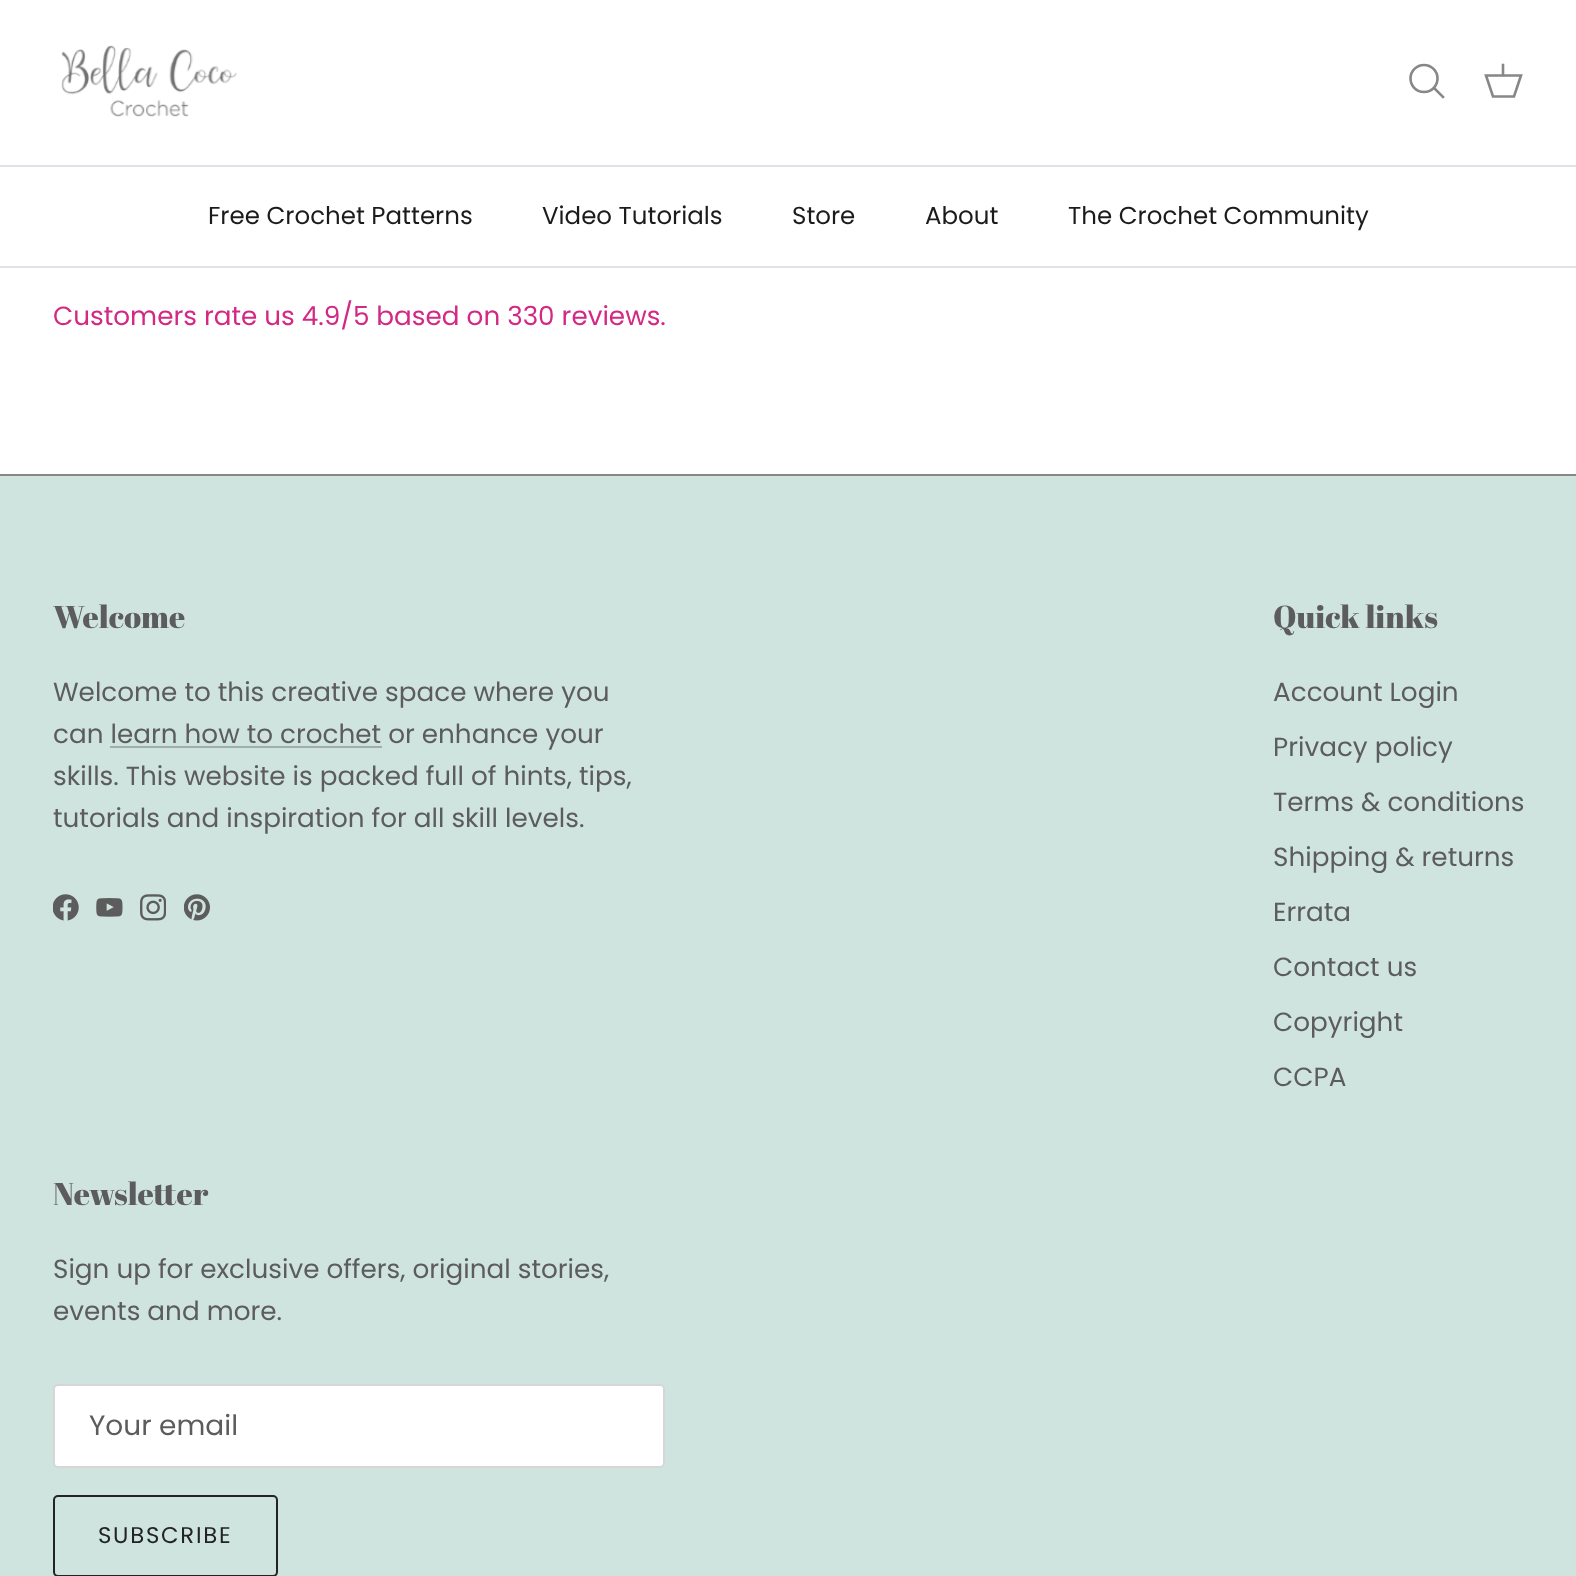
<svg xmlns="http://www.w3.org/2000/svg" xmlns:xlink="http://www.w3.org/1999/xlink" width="1576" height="1576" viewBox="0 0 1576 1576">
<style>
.cls-1{font:24.5px Poppins;fill:#1b1b1b}
.cls-2{font:26.25px Poppins;fill:#d32884}
.cls-3{font:31.5px Abril Fatface;fill:#5c5c5c}
.cls-4{font:26.25px Poppins;fill:#5c5c5c}
.cls-5{font:28px Poppins;fill:#5c5c5c}
.cls-6{font:22.75px Poppins;letter-spacing:1.75px;fill:#232323}
</style>
<rect width="100%" height="100%" fill="#ffffff"/>
<rect fill="#dfe3e8" x="0" y="165" width="1576" height="2"/>
<image xlink:href="image0.png" x="61" y="45" width="176" height="72"/>
<circle fill="none" stroke="#878787" stroke-width="2.6" cx="1424" cy="78.5" r="13.5"/>
<path fill="none" stroke="#878787" stroke-width="2.6" stroke-linecap="square" d="M1435 89L1443 97"/>
<path fill="none" stroke="#878787" stroke-width="2.6" d="M1486 75.5H1521L1514 96.5H1493Z"/>
<path fill="none" stroke="#878787" stroke-width="2.6" stroke-linecap="square" d="M1503 75V65"/>
<rect fill="#dfe3e8" x="0" y="266" width="1576" height="2"/>
<rect fill="#cfe4df" x="0" y="476" width="1576" height="1100"/>
<rect fill="#878787" x="0" y="474" width="1576" height="2"/>
<image xlink:href="image1.png" x="53" y="894" width="26" height="27"/>
<image xlink:href="image2.png" x="96" y="898" width="27" height="19"/>
<image xlink:href="image3.png" x="140" y="894" width="26" height="27"/>
<image xlink:href="image4.png" x="184" y="894" width="26" height="27"/>
<rect fill="#ffffff" stroke="#d6d6d6" stroke-width="2" x="54" y="1385" width="610" height="82" rx="4"/>
<rect fill="none" stroke="#232323" stroke-width="2" x="54" y="1496" width="223" height="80" rx="4"/>
<text class="cls-1" x="208" y="224">Free Crochet Patterns</text>
<text class="cls-1" x="542" y="224">Video Tutorials</text>
<text class="cls-1" x="792" y="224">Store</text>
<text class="cls-1" x="925" y="224">About</text>
<text class="cls-1" x="1068" y="224">The Crochet Community</text>
<text class="cls-2" x="53" y="325">Customers rate us 4.9/5 based on 330 reviews.</text>
<text class="cls-3" x="53" y="628">Welcome</text>
<text class="cls-4"><tspan x="53" y="701">Welcome to this creative space where you</tspan><tspan x="53" y="743">can learn how to crochet or enhance your</tspan></text>
<rect fill="#a1aeab" x="110" y="746" width="272" height="2"/>
<text class="cls-4"><tspan x="53" y="785">skills. This website is packed full of hints, tips,</tspan><tspan x="53" y="827">tutorials and inspiration for all skill levels.</tspan></text>
<text class="cls-3" x="1273" y="628">Quick links</text>
<text class="cls-4" x="1273" y="701">Account Login</text>
<text class="cls-4" x="1273" y="756">Privacy policy</text>
<text class="cls-4" x="1273" y="811">Terms &amp; conditions</text>
<text class="cls-4" x="1273" y="866">Shipping &amp; returns</text>
<text class="cls-4" x="1273" y="921">Errata</text>
<text class="cls-4" x="1273" y="976">Contact us</text>
<text class="cls-4" x="1273" y="1031">Copyright</text>
<text class="cls-4" x="1273" y="1086">CCPA</text>
<text class="cls-3" x="53" y="1205">Newsletter</text>
<text class="cls-4"><tspan x="53" y="1278">Sign up for exclusive offers, original stories,</tspan><tspan x="53" y="1320">events and more.</tspan></text>
<text class="cls-5" x="89" y="1435">Your email</text>
<text class="cls-6" x="98" y="1543">SUBSCRIBE</text>
</svg>
